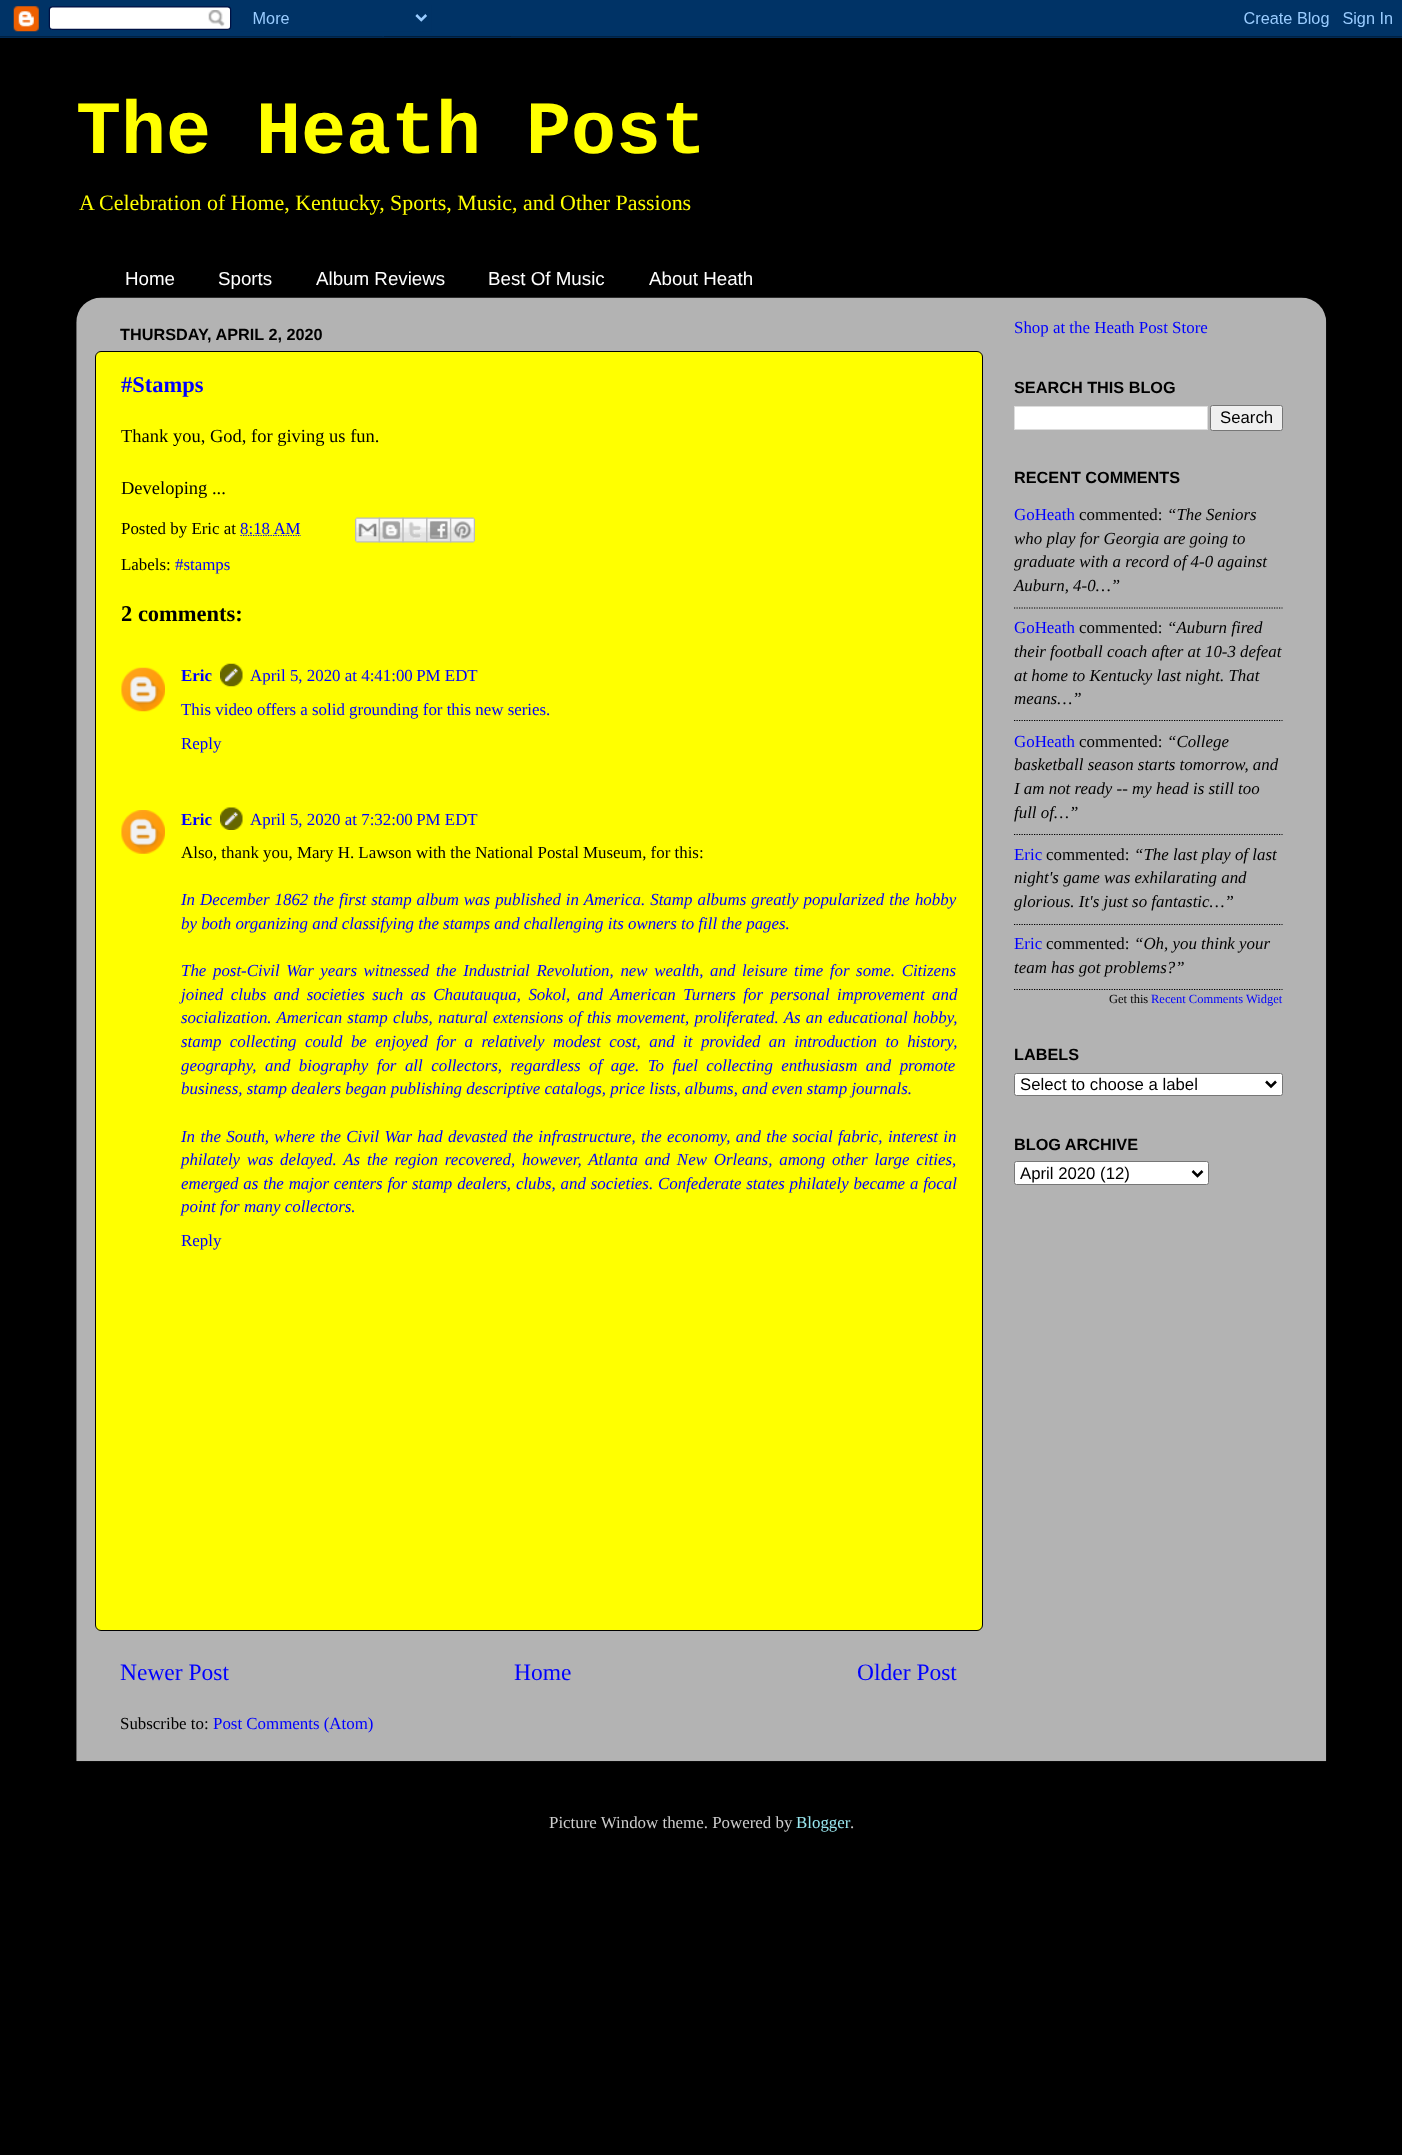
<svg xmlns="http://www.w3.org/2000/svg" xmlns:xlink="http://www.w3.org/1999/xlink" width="1402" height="2155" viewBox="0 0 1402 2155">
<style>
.cls-1{font:bold 75px Liberation Mono;fill:#ffff00}
.cls-2{font:21.95px Liberation Serif;fill:#ffff00}
.cls-3{font:18.75px Liberation Sans;fill:#ffffff}
.cls-4{font:bold 16.25px Liberation Sans;fill:#000000}
.cls-5{font:bold 22.5px Liberation Serif;fill:#0000ff}
.cls-6{font:18.5px Liberation Serif;fill:#000000}
.cls-7{font:16.9px Liberation Serif;fill:#000000}
.cls-8{font:16.9px Liberation Serif;fill:#0000ff}
.cls-9{font:bold 22.5px Liberation Serif;fill:#000000}
.cls-10{font:bold 16.9px Liberation Serif;fill:#0000ff}
.cls-11{font:italic 16.9px Liberation Serif;fill:#0000ff}
.cls-12{font:23.5px Liberation Serif;fill:#0000ff}
.cls-13{font:16.75px Liberation Sans;fill:#000000}
.cls-14{font:italic 16.9px Liberation Serif;fill:#000000}
.cls-15{font:12.5px Liberation Serif;fill:#000000}
.cls-16{font:12.5px Liberation Serif;fill:#0000ff}
.cls-17{font:16.9px Liberation Serif;fill:#cccccc}
.cls-18{font:16.9px Liberation Serif;fill:#99e6ee}
</style>
<rect width="100%" height="100%" fill="#000000"/>
<image xlink:href="image0.png" x="0" y="0" width="1402" height="38"/>
<image xlink:href="image1.png" x="76" y="297" width="1251" height="1465"/>
<rect fill="#ffff00" stroke="#000000" x="95.5" y="351.5" width="887" height="1279" rx="5.5"/>
<path fill="none" stroke="#0000ff" stroke-width="1.2" stroke-dasharray="1.25 1.25" d="M240.5 535.5H301"/>
<image xlink:href="image2.png" x="355" y="517" width="25" height="26"/>
<image xlink:href="image3.png" x="378" y="517" width="26" height="26"/>
<image xlink:href="image4.png" x="402" y="517" width="26" height="26"/>
<image xlink:href="image5.png" x="426" y="517" width="26" height="26"/>
<image xlink:href="image6.png" x="450" y="517" width="25" height="26"/>
<image xlink:href="image7.png" x="121" y="667" width="44" height="45"/>
<image xlink:href="image8.png" x="220" y="663" width="23" height="24"/>
<image xlink:href="image9.png" x="121" y="810" width="44" height="44"/>
<image xlink:href="image10.png" x="220" y="807" width="23" height="23"/>
<rect fill="#ffffff" stroke="#dddddd" x="1014.5" y="406.5" width="193" height="23"/>
<rect fill="#efefef" stroke="#767676" x="1210.5" y="405.5" width="72" height="25" rx="2"/>
<path fill="none" stroke="#000000" stroke-width="1.2" stroke-dasharray="1.25 1.25" d="M1014 608H1282.5"/>
<path fill="none" stroke="#000000" stroke-width="1.2" stroke-dasharray="1.25 1.25" d="M1014 720.5H1282.5"/>
<path fill="none" stroke="#000000" stroke-width="1.2" stroke-dasharray="1.25 1.25" d="M1014 834.5H1282.5"/>
<path fill="none" stroke="#000000" stroke-width="1.2" stroke-dasharray="1.25 1.25" d="M1014 924.5H1282.5"/>
<path fill="none" stroke="#000000" stroke-width="1.2" stroke-dasharray="1.25 1.25" d="M1014 989.5H1282.5"/>
<rect fill="#ffffff" stroke="#767676" x="1014.5" y="1073.5" width="268" height="22" rx="2"/>
<path fill="none" stroke="#000000" stroke-width="2.5" d="M1266 1081.5L1271 1086.5L1276 1081.5"/>
<rect fill="#ffffff" stroke="#767676" x="1014.5" y="1161.5" width="194" height="23" rx="2"/>
<path fill="none" stroke="#000000" stroke-width="2.5" d="M1192.5 1171L1197.5 1176L1202.5 1171"/>
<text class="cls-1" x="76" y="153">The Heath Post</text>
<text class="cls-2" x="79" y="210">A Celebration of Home, Kentucky, Sports, Music, and Other Passions</text>
<text class="cls-3" x="125" y="285">Home</text>
<text class="cls-3" x="218" y="285">Sports</text>
<text class="cls-3" x="316" y="285">Album Reviews</text>
<text class="cls-3" x="488" y="285">Best Of Music</text>
<text class="cls-3" x="649" y="285">About Heath</text>
<text class="cls-4" x="120" y="340">THURSDAY, APRIL 2, 2020</text>
<text class="cls-5" x="121" y="392">#Stamps</text>
<text class="cls-6" x="121" y="442">Thank you, God, for giving us fun.</text>
<text class="cls-6" x="121" y="494">Developing ...</text>
<text class="cls-7" x="121" y="534">Posted by Eric at</text>
<text class="cls-8" x="240" y="534">8:18 AM</text>
<text class="cls-7" x="121" y="570">Labels:</text>
<text class="cls-8" x="175" y="570">#stamps</text>
<text class="cls-9" x="121" y="621">2 comments:</text>
<text class="cls-10" x="181" y="681">Eric</text>
<text class="cls-8" x="250" y="681">April 5, 2020 at 4:41:00 PM EDT</text>
<text class="cls-8" x="181" y="715">This video offers a solid grounding for this new series.</text>
<text class="cls-8" x="181" y="749">Reply</text>
<text class="cls-10" x="181" y="825">Eric</text>
<text class="cls-8" x="250" y="825">April 5, 2020 at 7:32:00 PM EDT</text>
<text class="cls-7" x="181" y="858">Also, thank you, Mary H. Lawson with the National Postal Museum, for this:</text>
<text class="cls-11"><tspan x="181" y="905" word-spacing="0.8">In December 1862 the first stamp album was published in America. Stamp albums greatly popularized the hobby</tspan><tspan x="181" y="929">by both organizing and classifying the stamps and challenging its owners to fill the pages.</tspan></text>
<text class="cls-11"><tspan x="181" y="976" word-spacing="2.4">The post-Civil War years witnessed the Industrial Revolution, new wealth, and leisure time for some. Citizens</tspan><tspan x="181" y="1000" word-spacing="3.25">joined clubs and societies such as Chautauqua, Sokol, and American Turners for personal improvement and</tspan><tspan x="181" y="1023" word-spacing="1">socialization. American stamp clubs, natural extensions of this movement, proliferated. As an educational hobby,</tspan><tspan x="181" y="1047" word-spacing="4.25">stamp collecting could be enjoyed for a relatively modest cost, and it provided an introduction to history,</tspan><tspan x="181" y="1071" word-spacing="4.25">geography, and biography for all collectors, regardless of age. To fuel collecting enthusiasm and promote</tspan><tspan x="181" y="1094">business, stamp dealers began publishing descriptive catalogs, price lists, albums, and even stamp journals.</tspan></text>
<text class="cls-11"><tspan x="181" y="1142" word-spacing="1.1">In the South, where the Civil War had devasted the infrastructure, the economy, and the social fabric, interest in</tspan><tspan x="181" y="1165" word-spacing="2.6">philately was delayed. As the region recovered, however, Atlanta and New Orleans, among other large cities,</tspan><tspan x="181" y="1189" word-spacing="0.6">emerged as the major centers for stamp dealers, clubs, and societies. Confederate states philately became a focal</tspan><tspan x="181" y="1212">point for many collectors.</tspan></text>
<text class="cls-8" x="181" y="1246">Reply</text>
<text class="cls-12" x="120" y="1680">Newer Post</text>
<text class="cls-12" x="514" y="1680">Home</text>
<text class="cls-12" x="857" y="1680">Older Post</text>
<text class="cls-7" x="120" y="1729">Subscribe to:</text>
<text class="cls-8" x="213" y="1729">Post Comments (Atom)</text>
<text class="cls-8" x="1014" y="333">Shop at the Heath Post Store</text>
<text class="cls-4" x="1014" y="393">SEARCH THIS BLOG</text>
<text class="cls-13" x="1220" y="423">Search</text>
<text class="cls-4" x="1014" y="483">RECENT COMMENTS</text>
<text class="cls-8" x="1014" y="520">GoHeath</text>
<text class="cls-7" x="1079" y="520">commented:</text>
<text class="cls-14" x="1167" y="520">“The Seniors</text>
<text class="cls-14"><tspan x="1014" y="544">who play for Georgia are going to</tspan><tspan x="1014" y="567">graduate with a record of 4-0 against</tspan><tspan x="1014" y="591">Auburn, 4-0…”</tspan></text>
<text class="cls-8" x="1014" y="633">GoHeath</text>
<text class="cls-7" x="1079" y="633">commented:</text>
<text class="cls-14" x="1167" y="633">“Auburn fired</text>
<text class="cls-14"><tspan x="1014" y="657">their football coach after at 10-3 defeat</tspan><tspan x="1014" y="681">at home to Kentucky last night. That</tspan><tspan x="1014" y="704">means…”</tspan></text>
<text class="cls-8" x="1014" y="747">GoHeath</text>
<text class="cls-7" x="1079" y="747">commented:</text>
<text class="cls-14" x="1167" y="747">“College</text>
<text class="cls-14"><tspan x="1014" y="770">basketball season starts tomorrow, and</tspan><tspan x="1014" y="794">I am not ready -- my head is still too</tspan><tspan x="1014" y="818">full of…”</tspan></text>
<text class="cls-8" x="1014" y="860">Eric</text>
<text class="cls-7" x="1046" y="860">commented:</text>
<text class="cls-14" x="1134" y="860">“The last play of last</text>
<text class="cls-14"><tspan x="1014" y="883">night's game was exhilarating and</tspan><tspan x="1014" y="907">glorious. It's just so fantastic…”</tspan></text>
<text class="cls-8" x="1014" y="949">Eric</text>
<text class="cls-7" x="1046" y="949">commented:</text>
<text class="cls-14" x="1134" y="949">“Oh, you think your</text>
<text class="cls-14" x="1014" y="973">team has got problems?”</text>
<text class="cls-15" x="1109" y="1003">Get this</text>
<text class="cls-16" x="1151" y="1003">Recent Comments Widget</text>
<text class="cls-4" x="1014" y="1060">LABELS</text>
<text class="cls-13" x="1020" y="1090">Select to choose a label</text>
<text class="cls-4" x="1014" y="1150">BLOG ARCHIVE</text>
<text class="cls-13" x="1020" y="1179">April 2020 (12)</text>
<text class="cls-17" x="549" y="1828">Picture Window theme. Powered by</text>
<text class="cls-18" x="796" y="1828">Blogger</text>
<text class="cls-17" x="850" y="1828">.</text>
</svg>
